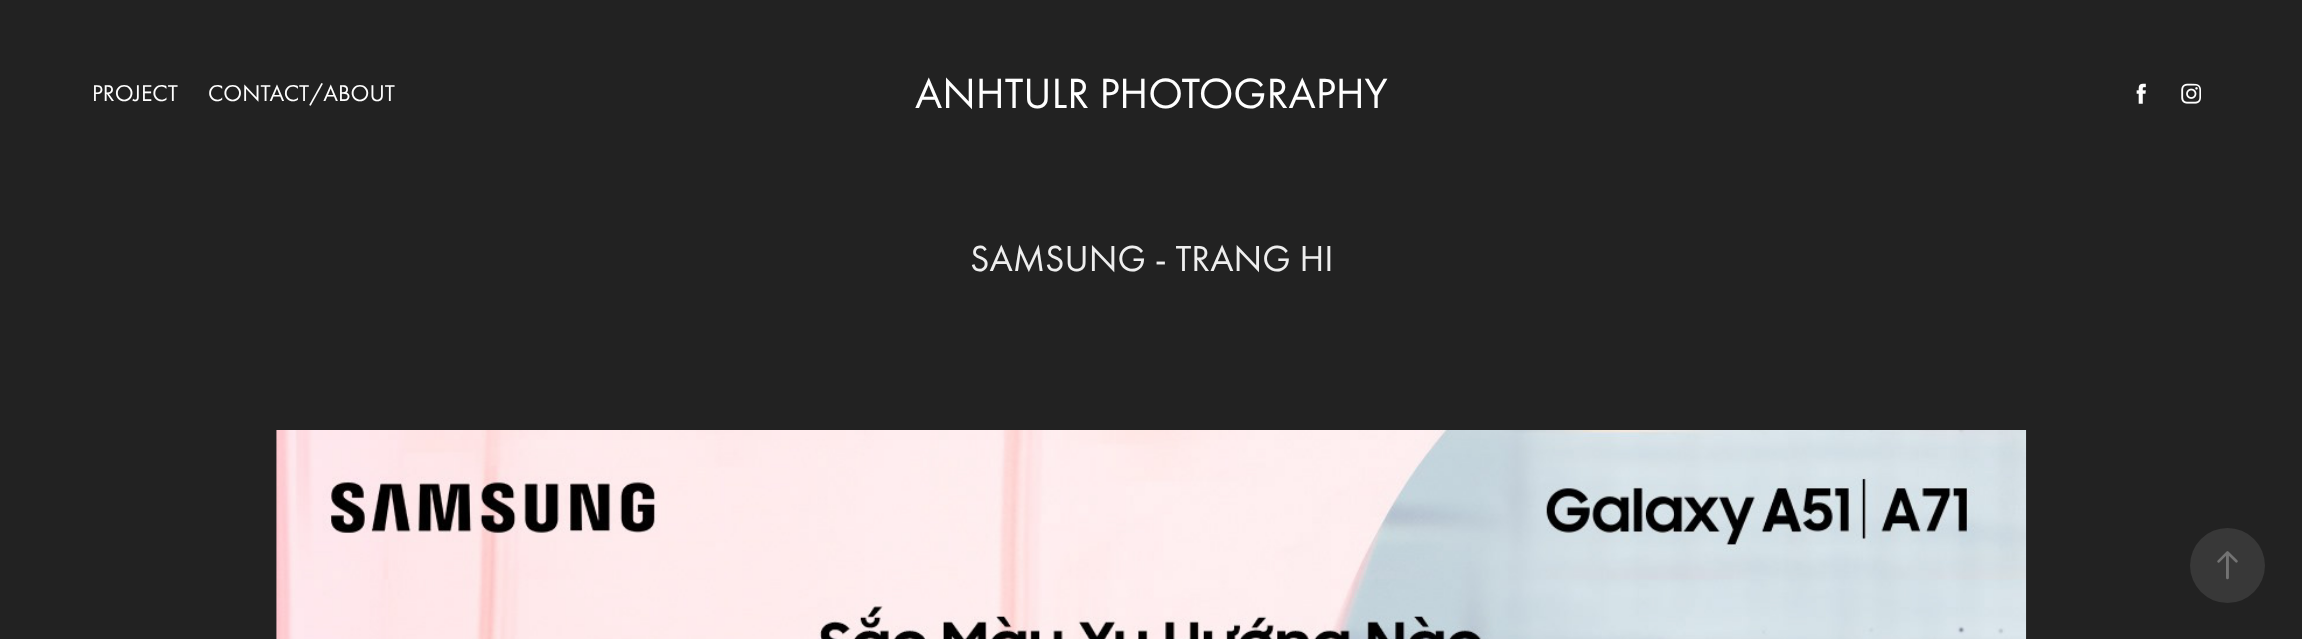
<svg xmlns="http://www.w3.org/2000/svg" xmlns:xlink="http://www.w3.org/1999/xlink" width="2302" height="639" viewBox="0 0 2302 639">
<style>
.cls-1{font:23.75px Futura PT;fill:#ffffff}
.cls-2{font:43.75px Futura PT;fill:#ffffff}
.cls-3{font:37.5px Futura PT;fill:#eeeeee}
</style>
<rect width="100%" height="100%" fill="#222222"/>
<image xlink:href="image0.png" x="2136" y="83" width="10" height="21"/>
<image xlink:href="image1.png" x="2181" y="83" width="20" height="21"/>
<image xlink:href="image2.png" x="276" y="430" width="1751" height="209"/>
<circle fill="#383838" cx="2227.5" cy="565.5" r="37.5"/>
<image xlink:href="image3.png" x="2217" y="551" width="21" height="29"/>
<text class="cls-1" x="92" y="101">PROJECT</text>
<text class="cls-1" x="208" y="101">CONTACT/ABOUT</text>
<text class="cls-2" x="915" y="108">ANHTULR PHOTOGRAPHY</text>
<text class="cls-3" x="970" y="271">SAMSUNG - TRANG HI</text>
</svg>
